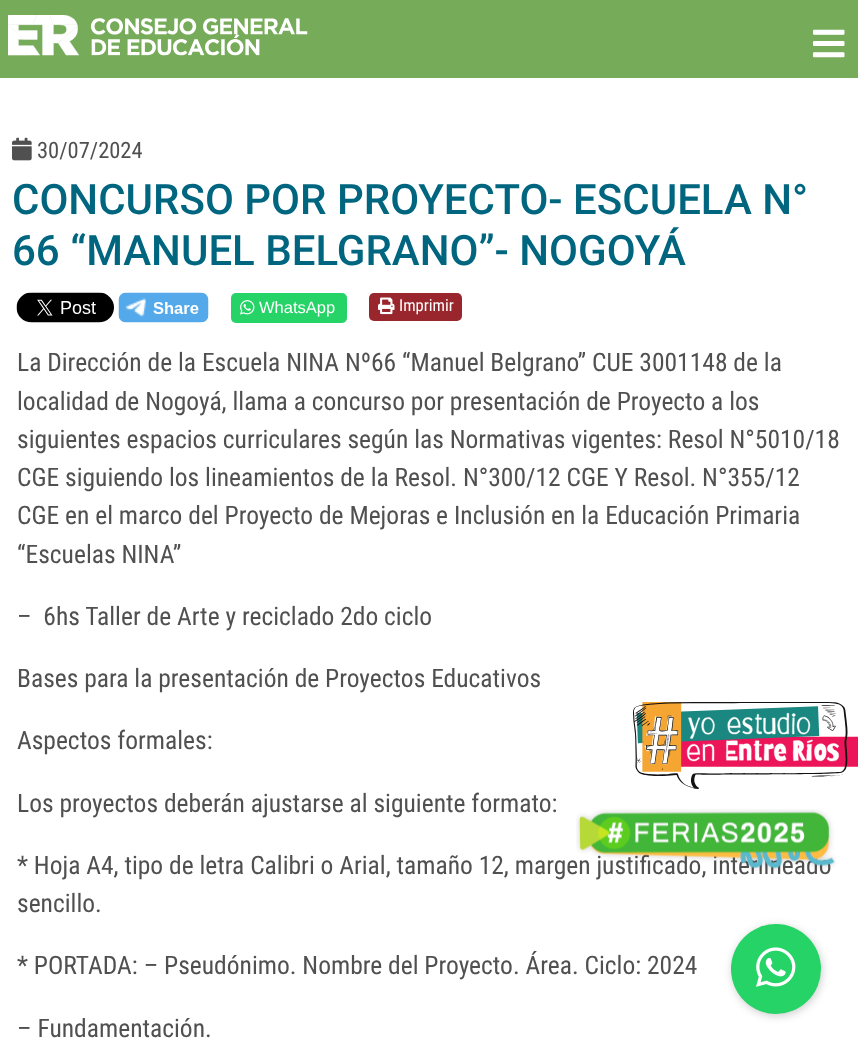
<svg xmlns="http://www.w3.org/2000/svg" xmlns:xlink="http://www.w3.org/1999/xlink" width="858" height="1059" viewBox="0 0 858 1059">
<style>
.cls-1{font:22.5px Roboto Condensed;fill:#505050}
.cls-2{font:500 42px Roboto;fill:#006680}
.cls-3{font:16.5px Liberation Sans;fill:#ffffff}
.cls-4{font:16.5px Roboto Condensed;fill:#ffffff}
.cls-5{font:25.5px Roboto Condensed;fill:#505050}
</style>
<rect width="100%" height="100%" fill="#ffffff"/>
<rect fill="#75ab59" x="0" y="0" width="858" height="78"/>
<image xlink:href="image0.png" x="8" y="15" width="300" height="41"/>
<image xlink:href="image1.png" x="813" y="29" width="32" height="29"/>
<image xlink:href="image2.png" x="12" y="137" width="20" height="24"/>
<image xlink:href="image3.png" x="16" y="292" width="98" height="31"/>
<image xlink:href="image4.png" x="118" y="292" width="91" height="31"/>
<rect fill="#25d366" x="231" y="293" width="116" height="30" rx="5"/>
<image xlink:href="image5.png" x="240" y="300" width="15" height="15"/>
<rect fill="#99262c" x="369" y="293" width="93" height="28" rx="5"/>
<image xlink:href="image6.png" x="378" y="297" width="17" height="18"/>
<image xlink:href="image7.png" x="633" y="702" width="225" height="87"/>
<rect fill="#000000" fill-opacity="0.2" filter="blur(4px)" x="732" y="926" width="90" height="90" rx="45"/>
<circle fill="#25d366" cx="776" cy="969" r="45"/>
<image xlink:href="image9.png" x="756" y="947" width="40" height="40"/>
<text class="cls-1" x="37" y="158">30/07/2024</text>
<text class="cls-2"><tspan x="12" y="214">CONCURSO POR PROYECTO- ESCUELA N°</tspan><tspan x="12" y="265">66 “MANUEL BELGRANO”- NOGOYÁ</tspan></text>
<text class="cls-3" x="259" y="313">WhatsApp</text>
<text class="cls-4" x="399" y="311">Imprimir</text>
<text class="cls-5"><tspan x="17" y="371">La Dirección de la Escuela NINA Nº66 “Manuel Belgrano” CUE 3001148 de la</tspan><tspan x="17" y="410">localidad de Nogoyá, llama a concurso por presentación de Proyecto a los</tspan><tspan x="17" y="448">siguientes espacios curriculares según las Normativas vigentes: Resol N°5010/18</tspan><tspan x="17" y="486">CGE siguiendo los lineamientos de la Resol. N°300/12 CGE Y Resol. N°355/12</tspan><tspan x="17" y="524">CGE en el marco del Proyecto de Mejoras e Inclusión en la Educación Primaria</tspan><tspan x="17" y="563">“Escuelas NINA”</tspan></text>
<text class="cls-5" xml:space="preserve" x="17" y="625">–  6hs Taller de Arte y reciclado 2do ciclo</text>
<text class="cls-5" x="17" y="687">Bases para la presentación de Proyectos Educativos</text>
<text class="cls-5" x="17" y="749">Aspectos formales:</text>
<text class="cls-5" x="17" y="812">Los proyectos deberán ajustarse al siguiente formato:</text>
<text class="cls-5"><tspan x="17" y="874">* Hoja A4, tipo de letra Calibri o Arial, tamaño 12, margen justificado, interlineado</tspan><tspan x="17" y="912">sencillo.</tspan></text>
<text class="cls-5" x="17" y="974">* PORTADA: – Pseudónimo. Nombre del Proyecto. Área. Ciclo: 2024</text>
<text class="cls-5" x="17" y="1037">– Fundamentación.</text>
<image xlink:href="image8.png" x="576" y="809" width="260" height="62"/>
</svg>
